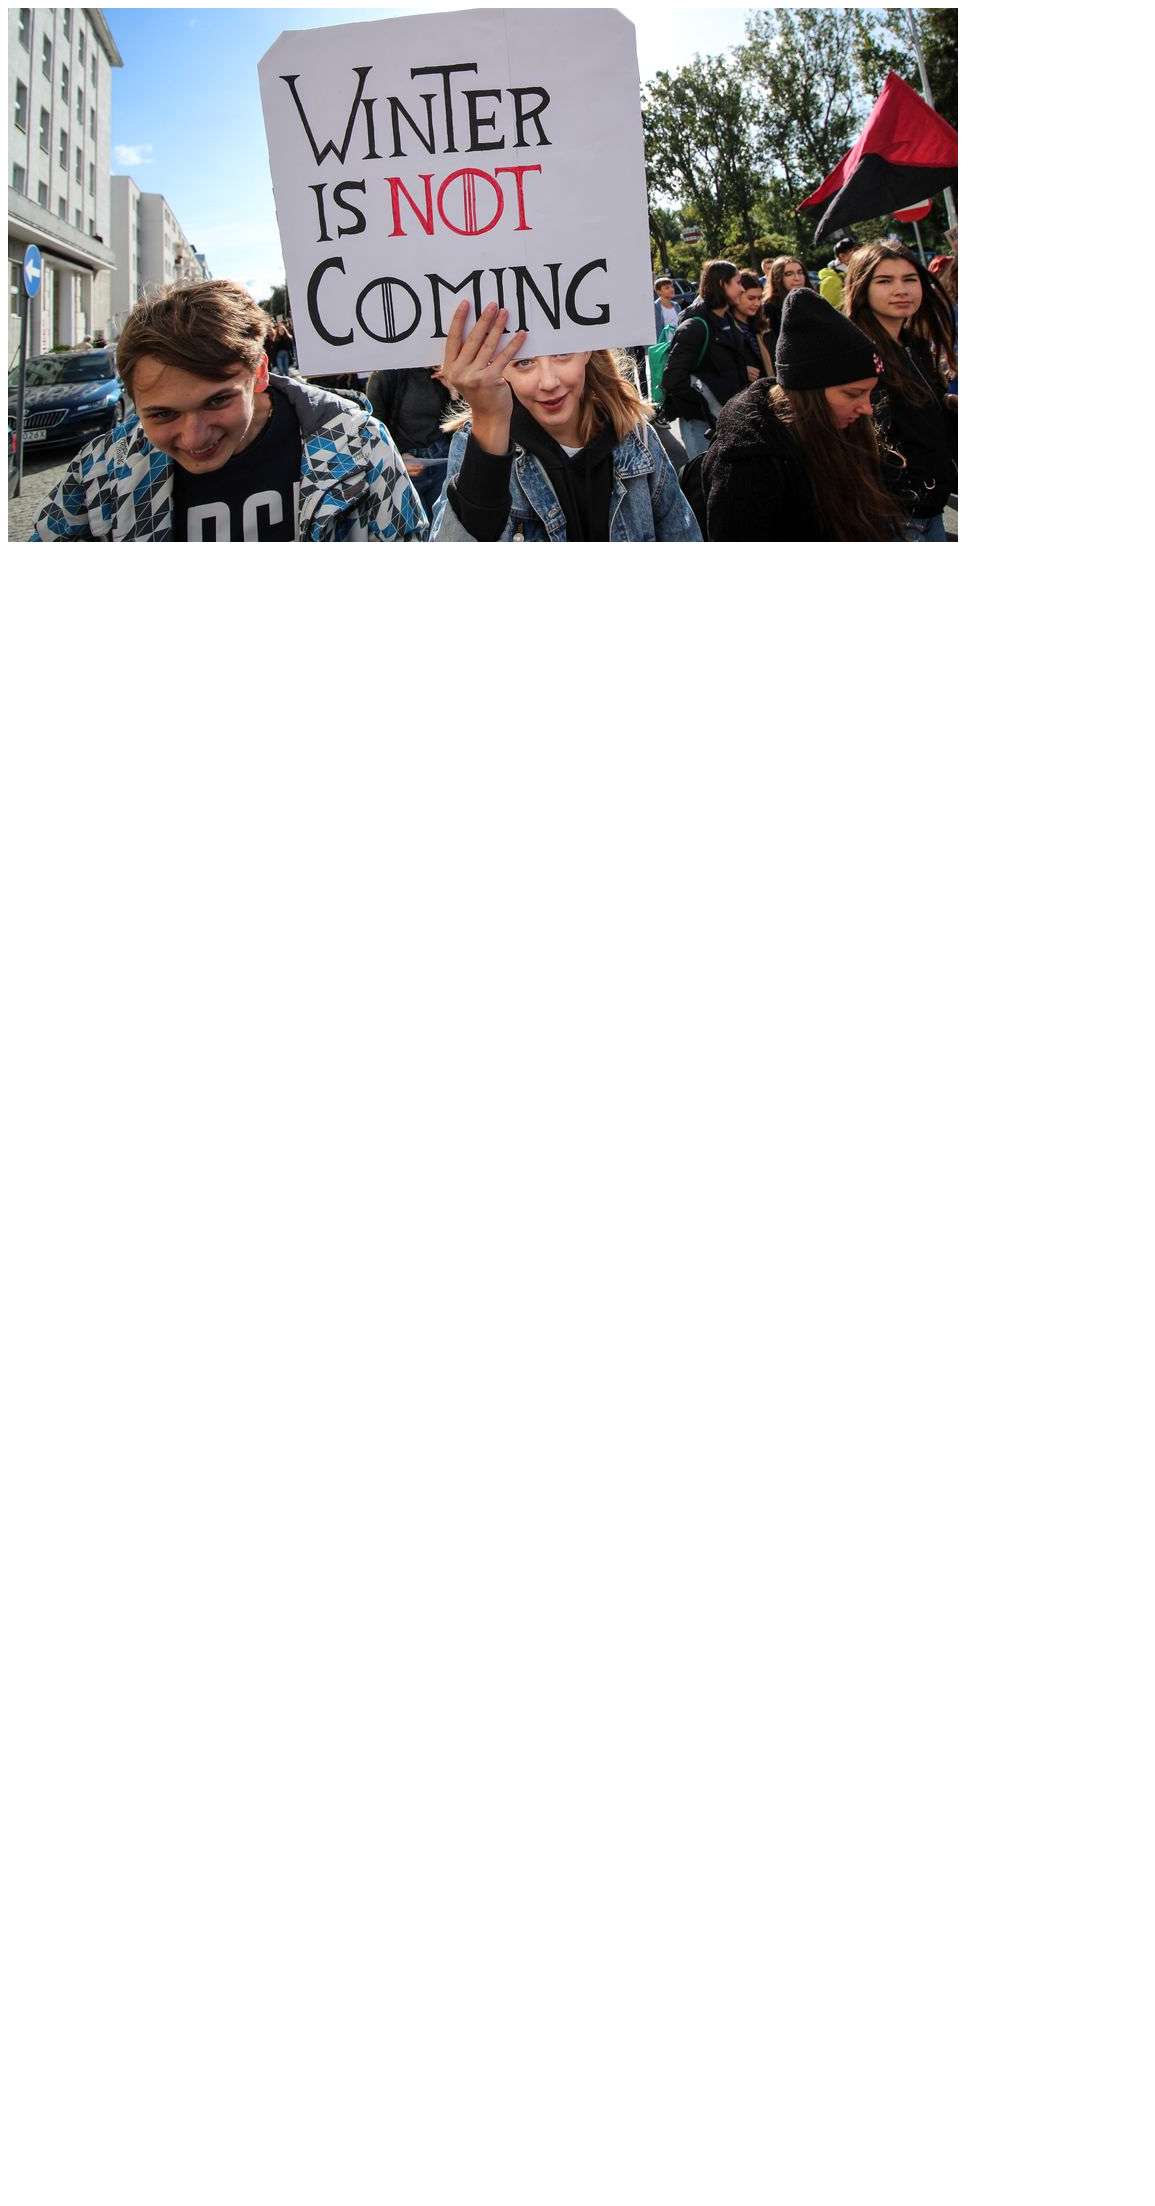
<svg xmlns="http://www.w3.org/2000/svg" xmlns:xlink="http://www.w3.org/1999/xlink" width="1155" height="2206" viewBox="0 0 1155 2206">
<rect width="100%" height="100%" fill="#ffffff"/>
<image xlink:href="image0.png" x="8" y="8" width="950" height="534"/>
</svg>
